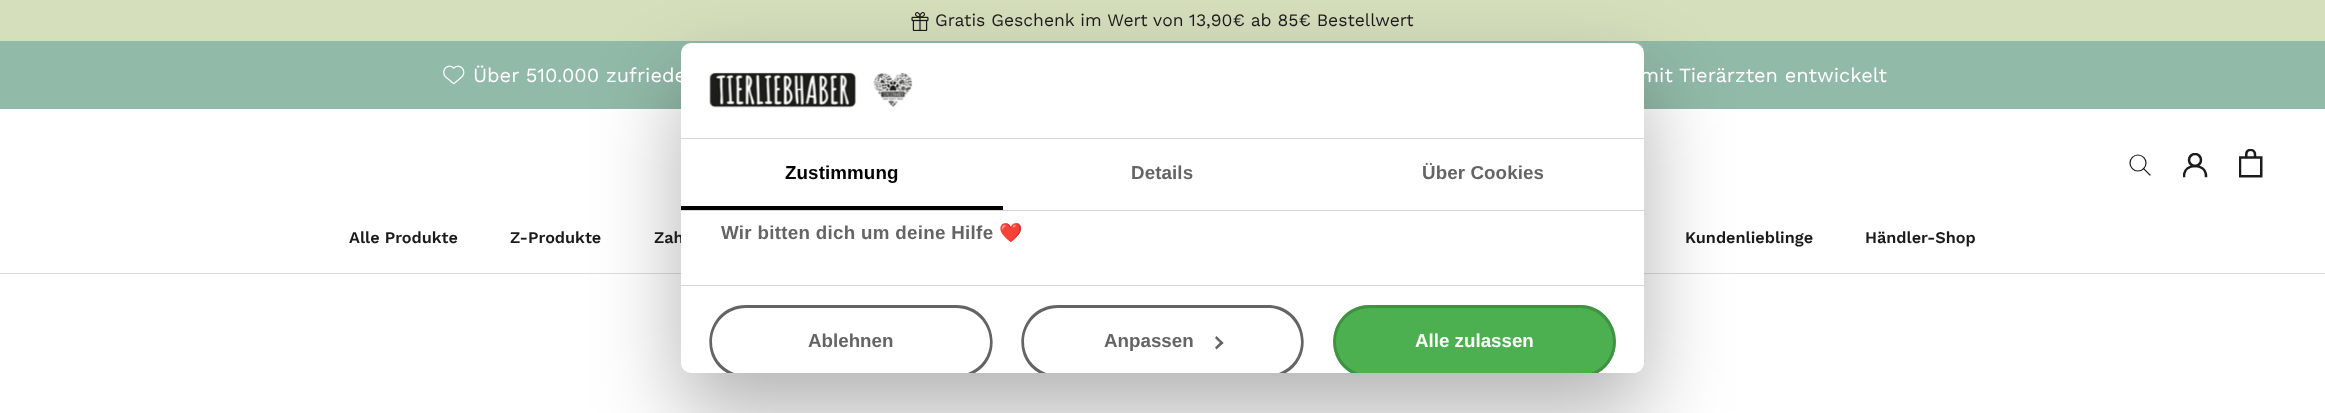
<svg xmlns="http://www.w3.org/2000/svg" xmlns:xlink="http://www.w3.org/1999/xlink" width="2325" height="413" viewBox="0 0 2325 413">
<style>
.cls-1{font:17.5px Work Sans;fill:#1c1b1b}
.cls-2{font:20px Work Sans;fill:#ffffff}
.cls-3{font:600 16.25px Work Sans;fill:#1c1b1b}
.cls-4{font:bold 18.75px Liberation Sans;letter-spacing:0.1px;fill:#000000}
.cls-5{font:bold 18.75px Liberation Sans;letter-spacing:0.1px;fill:#646464}
.cls-6{font:bold 18.75px Liberation Sans;letter-spacing:0.3px;fill:#646464}
.cls-7{font:bold 18.75px Noto Color Emoji;letter-spacing:0.3px;fill:#646464}
.cls-8{font:bold 18.75px Liberation Sans;fill:#646464}
.cls-9{font:bold 18.75px Liberation Sans;fill:#ffffff}
</style>
<defs>
<clipPath id="clip1"><rect x="2183" y="153" width="25" height="25"/></clipPath>
<clipPath id="clip2"><rect x="681" y="43" width="963" height="330" rx="10"/></clipPath>
</defs>
<rect width="100%" height="100%" fill="#ffffff"/>
<rect fill="#d5dfbc" x="0" y="0" width="2325" height="41"/>
<image xlink:href="image0.png" x="911" y="12" width="18" height="19"/>
<rect fill="#92baa8" x="0" y="41" width="2325" height="68"/>
<image xlink:href="image1.png" x="443" y="65" width="22" height="20"/>
<rect fill="#dddddd" x="0" y="273" width="2325" height="1"/>
<path fill="none" stroke="#1c1b1b" stroke-width="1.2" stroke-linecap="square" d="M2150 175L2143.5 168.5"/>
<circle fill="none" stroke="#1c1b1b" stroke-width="1.2" cx="2138" cy="163" r="8"/>
<g clip-path="url(#clip1)">
<path fill="none" stroke="#1c1b1b" stroke-width="2.5" stroke-linecap="square" d="M2184 176C2184 162.5 2206 162.5 2206 176"/>
<circle fill="none" stroke="#1c1b1b" stroke-width="2.5" cx="2195" cy="160" r="6"/>
</g>
<image xlink:href="image2.png" x="2239" y="149" width="24" height="29"/>
<rect fill="#000000" fill-opacity="0.3" filter="blur(42.5px)" x="681" y="83" width="963" height="330" rx="10"/>
<text class="cls-1" x="935" y="26">Gratis Geschenk im Wert von 13,90€ ab 85€ Bestellwert</text>
<text class="cls-2" x="473" y="82">Über 510.000 zufriede</text>
<text class="cls-2" x="1640" y="82">mit Tierärzten entwickelt</text>
<text class="cls-3" x="349" y="243">Alle Produkte</text>
<text class="cls-3" x="510" y="243">Z-Produkte</text>
<text class="cls-3" x="654" y="243">Zah</text>
<text class="cls-3" x="1685" y="243">Kundenlieblinge</text>
<text class="cls-3" x="1865" y="243">Händler-Shop</text>
<rect fill="#ffffff" x="681" y="43" width="963" height="330" rx="10"/>
<rect fill="#d6d6d6" x="681" y="138" width="963" height="1"/>
<image xlink:href="image3.png" x="709" y="72" width="204" height="36"/>
<rect fill="#d6d6d6" x="681" y="210" width="963" height="1"/>
<rect fill="#000000" x="681" y="206" width="322" height="4"/>
<text class="cls-4" x="785" y="179">Zustimmung</text>
<text class="cls-5" x="1131" y="179">Details</text>
<text class="cls-5" x="1422" y="179">Über Cookies</text>
<rect fill="#d6d6d6" x="681" y="285" width="963" height="1"/>
<text class="cls-6" x="721" y="239">Wir bitten dich um deine Hilfe</text>
<text class="cls-7" x="999" y="239">❤️</text>
<path fill="#646464" d="M746 305C708 305 696 355 727 373H734C721 368 712 356 712 342C712 323 727 308 746 308H956C975 308 990 323 990 342C990 356 981 368 968 373H975C1006 355 994 305 956 305Z"/>
<text class="cls-8" x="808" y="347">Ablehnen</text>
<path fill="#646464" d="M1058 305C1020 305 1008 355 1039 373H1046C1033 368 1024 356 1024 342C1024 323 1039 308 1058 308H1268C1286 308 1301 323 1301 342C1301 356 1292 368 1279 373H1286C1317 355 1305 305 1268 305Z"/>
<text class="cls-8" x="1104" y="347">Anpassen</text>
<path fill="#646464" d="M1216.5 336L1223.5 343L1221.5 344.5L1215 338Z"/>
<path fill="#646464" d="M1221.5 341L1223.5 343L1216.5 349.5L1215 347.5Z"/>
<g clip-path="url(#clip2)">
<rect fill="#4caf50" x="1333" y="305" width="283" height="73" rx="36.5"/>
</g>
<path fill="#409243" d="M1370 305C1332 305 1320 355 1351 373H1358C1345 368 1336 356 1336 342C1336 323 1351 308 1370 308H1580C1598 308 1613 323 1613 342C1613 356 1604 368 1591 373H1598C1629 355 1617 305 1580 305Z"/>
<text class="cls-9" x="1415" y="347">Alle zulassen</text>
<rect fill="#ffffff" x="1635" y="372" width="1" height="1"/>
</svg>
